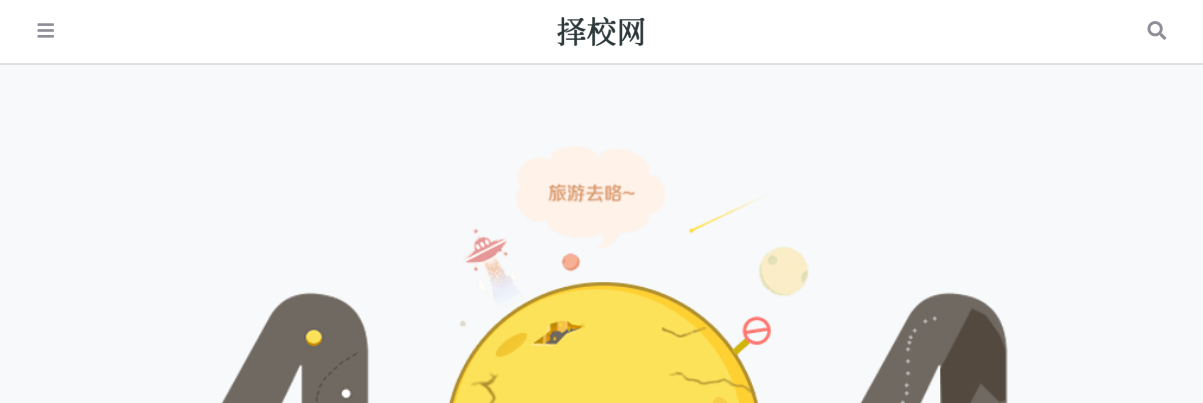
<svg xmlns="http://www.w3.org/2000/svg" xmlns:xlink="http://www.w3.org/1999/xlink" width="1203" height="403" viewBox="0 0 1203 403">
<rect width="100%" height="100%" fill="#f7f9fa"/>
<rect fill="#000000" fill-opacity="0.1" filter="blur(0.5px)" x="-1" y="0" width="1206" height="65"/>
<rect fill="#ffffff" x="0" y="0" width="1203" height="63"/>
<image xlink:href="image0.png" x="37" y="23" width="17" height="15"/>
<image xlink:href="image1.png" x="557" y="17" width="88" height="30"/>
<image xlink:href="image2.png" x="1147" y="21" width="20" height="19"/>
<image xlink:href="image3.png" x="221" y="146" width="787" height="257"/>
</svg>
